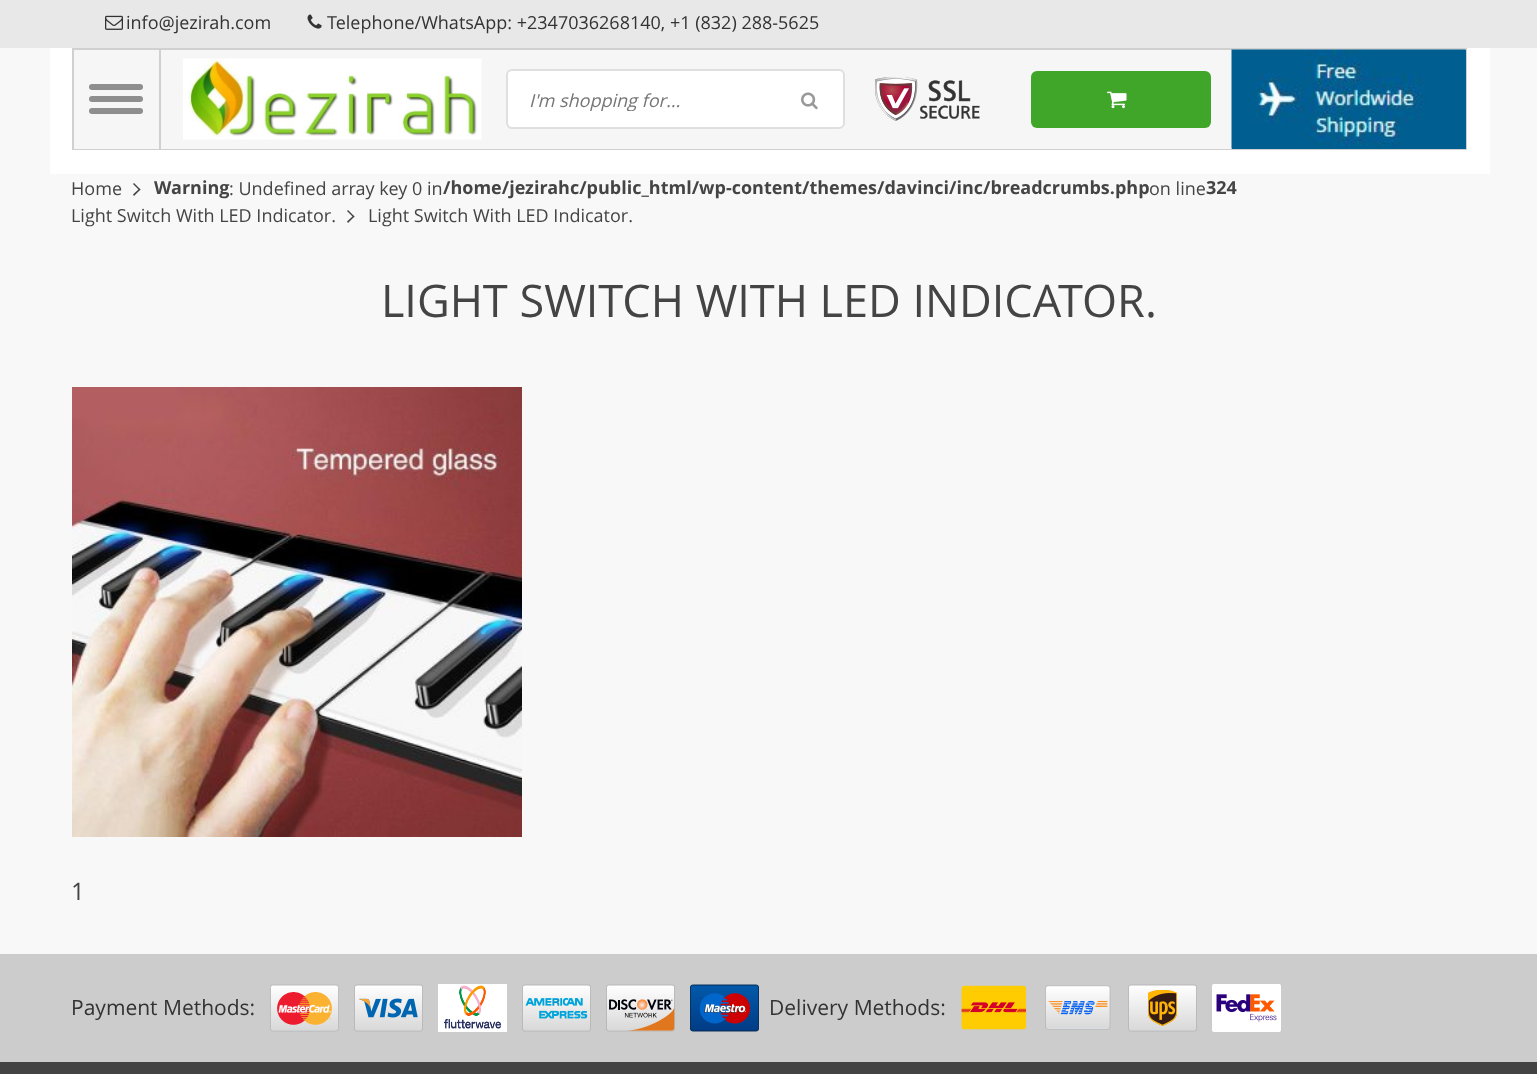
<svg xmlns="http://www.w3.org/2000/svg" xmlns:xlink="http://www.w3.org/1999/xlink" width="1537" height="1074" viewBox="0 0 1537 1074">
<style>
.cls-1{font:18px Open Sans;fill:#333333}
.cls-2{font:italic 18px Open Sans;fill:#757575}
.cls-3{font:18px Open Sans;fill:#444444}
.cls-4{font:bold 18px Open Sans;fill:#444444}
.cls-5{font:45px Open Sans;fill:#444444}
.cls-6{font:24px Open Sans;fill:#444444}
.cls-7{font:21px Open Sans;fill:#333333}
</style>
<defs>
<clipPath id="clip1"><rect x="530" y="87" width="253" height="24"/></clipPath>
</defs>
<rect width="100%" height="100%" fill="#f8f8f8"/>
<rect fill="#e8e8e8" x="0" y="0" width="1537" height="48"/>
<image xlink:href="image0.png" x="105" y="15" width="18" height="15"/>
<image xlink:href="image1.png" x="307" y="14" width="15" height="15"/>
<rect fill="#ffffff" x="50" y="48" width="1440" height="126"/>
<rect fill="none" stroke="#d0d0d0" stroke-width="2" x="73" y="49" width="1393" height="100"/>
<rect fill="#f6f6f6" x="74" y="50" width="1158" height="99"/>
<rect fill="#d0d0d0" x="159" y="50" width="2" height="99"/>
<rect fill="#8e8e8e" x="89" y="84" width="54" height="6" rx="3"/>
<rect fill="#8e8e8e" x="89" y="96" width="54" height="6" rx="3"/>
<rect fill="#8e8e8e" x="89" y="108" width="54" height="6" rx="3"/>
<image xlink:href="image2.png" x="183" y="58" width="299" height="82"/>
<rect fill="#ffffff" stroke="#dfdfdf" stroke-width="2" x="507" y="70" width="337" height="58" rx="5"/>
<image xlink:href="image3.png" x="801" y="92" width="17" height="18"/>
<image xlink:href="image4.png" x="875" y="77" width="105" height="44"/>
<rect fill="#40a629" x="1031" y="71" width="180" height="57" rx="6"/>
<image xlink:href="image5.png" x="1107" y="91" width="20" height="18"/>
<rect fill="#005e8e" x="1232" y="50" width="234" height="99"/>
<image xlink:href="image6.png" x="1231" y="49" width="235" height="100"/>
<path fill="#444444" d="M134 183L140.5 189.5L139.5 190.5L133 184Z"/>
<path fill="#444444" d="M139.5 188.5L140.5 189.5L134 196L133 194.5Z"/>
<path fill="#444444" d="M348 210L354.5 216.5L353.5 217.5L347 211Z"/>
<path fill="#444444" d="M353.5 215.5L354.5 216.5L348 223L347 221.5Z"/>
<image xlink:href="image7.png" x="72" y="387" width="450" height="450"/>
<rect fill="#434343" x="0" y="1062" width="1537" height="12"/>
<rect fill="#cccccc" x="0" y="954" width="1537" height="108"/>
<image xlink:href="image8.png" x="270" y="984" width="69" height="48"/>
<image xlink:href="image9.png" x="354" y="984" width="69" height="48"/>
<image xlink:href="image10.png" x="438" y="984" width="69" height="48"/>
<image xlink:href="image11.png" x="522" y="984" width="69" height="48"/>
<image xlink:href="image12.png" x="606" y="984" width="69" height="48"/>
<image xlink:href="image13.png" x="690" y="984" width="69" height="48"/>
<image xlink:href="image14.png" x="961" y="985" width="66" height="45"/>
<image xlink:href="image15.png" x="1045" y="985" width="66" height="45"/>
<image xlink:href="image16.png" x="1128" y="984" width="69" height="48"/>
<image xlink:href="image17.png" x="1212" y="984" width="69" height="48"/>
<text class="cls-1" x="126" y="29">info@jezirah.com</text>
<text class="cls-1" x="327" y="29">Telephone/WhatsApp: +2347036268140, +1 (832) 288-5625</text>
<g clip-path="url(#clip1)">
<text class="cls-2" x="529" y="107">I'm shopping for...</text>
</g>
<text class="cls-3" x="71" y="195">Home</text>
<text class="cls-4" x="154" y="194">Warning</text>
<text class="cls-3" x="229" y="195">: Undefined array key 0 in</text>
<text class="cls-4" x="443" y="194">/home/jezirahc/public_html/wp-content/themes/davinci/inc/breadcrumbs.php</text>
<text class="cls-3" x="1149" y="195">on line</text>
<text class="cls-4" x="1206" y="194">324</text>
<text class="cls-3" x="71" y="222">Light Switch With LED Indicator.</text>
<text class="cls-3" x="368" y="222">Light Switch With LED Indicator.</text>
<text class="cls-5" x="381" y="317">LIGHT SWITCH WITH LED INDICATOR.</text>
<text class="cls-6" x="71" y="900">1</text>
<text class="cls-7" x="71" y="1015">Payment Methods:</text>
<text class="cls-7" x="769" y="1015">Delivery Methods:</text>
</svg>
